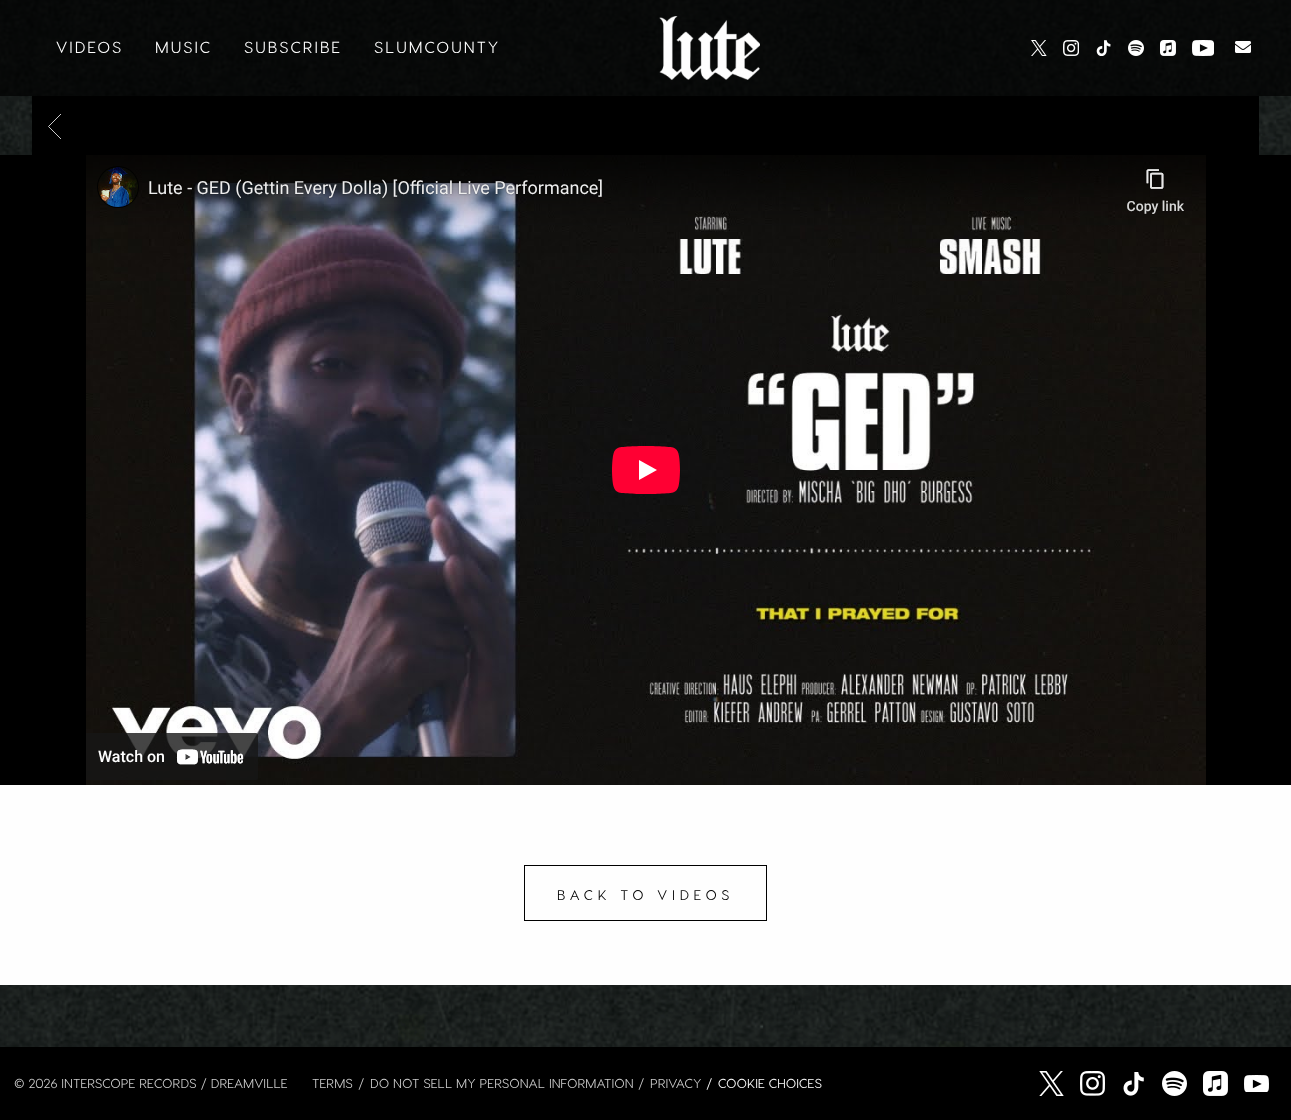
<svg xmlns="http://www.w3.org/2000/svg" xmlns:xlink="http://www.w3.org/1999/xlink" width="1291" height="1120" viewBox="0 0 1291 1120">
<style>
.cls-1{font:500 16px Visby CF;letter-spacing:2px;fill:#ffffff}
.cls-2{font:500 14px Visby CF;letter-spacing:4.75px;fill:#000000}
.cls-3{font:500 13px Visby CF;fill:#cccccc}
.cls-4{font:500 13px Visby CF;fill:#ffffff}
</style>
<defs>
<clipPath id="clip1"><rect x="48" y="114" width="13" height="25"/></clipPath>
</defs>
<rect width="100%" height="100%" fill="#ffffff"/>
<image xlink:href="image0.png" x="0" y="0" width="1291" height="1047"/>
<rect fill="#000000" fill-opacity="0.7" x="0" y="0" width="1291" height="96"/>
<image xlink:href="image1.png" x="659" y="16" width="101" height="64"/>
<image xlink:href="image2.png" x="1031" y="40" width="16" height="16"/>
<image xlink:href="image3.png" x="1063" y="40" width="16" height="16"/>
<image xlink:href="image4.png" x="1096" y="40" width="15" height="16"/>
<image xlink:href="image5.png" x="1128" y="40" width="16" height="16"/>
<image xlink:href="image6.png" x="1160" y="40" width="16" height="16"/>
<image xlink:href="image7.png" x="1192" y="40" width="22" height="16"/>
<image xlink:href="image8.png" x="1235" y="41" width="16" height="12"/>
<rect fill="#000000" x="32" y="96" width="1227" height="59"/>
<g clip-path="url(#clip1)">
<path fill="none" stroke="#ffffff" stroke-width="0.8" d="M61 139L48.5 126.5L61 114"/>
</g>
<rect fill="#fefefe" x="0" y="785" width="1291" height="200"/>
<rect fill="#000000" x="0" y="155" width="1291" height="630"/>
<image xlink:href="image9.png" x="86" y="155" width="1120" height="630"/>
<rect fill="none" stroke="#000000" x="524.5" y="865.5" width="242" height="55"/>
<rect fill="#000000" x="0" y="1047" width="1291" height="73"/>
<image xlink:href="image10.png" x="1039" y="1071" width="25" height="25"/>
<image xlink:href="image11.png" x="1080" y="1071" width="25" height="25"/>
<image xlink:href="image12.png" x="1123" y="1072" width="21" height="24"/>
<image xlink:href="image13.png" x="1162" y="1071" width="25" height="25"/>
<image xlink:href="image14.png" x="1203" y="1071" width="25" height="25"/>
<image xlink:href="image15.png" x="1244" y="1075" width="25" height="17"/>
<text class="cls-1" x="56" y="53">VIDEOS</text>
<text class="cls-1" x="155" y="53">MUSIC</text>
<text class="cls-1" x="244" y="53">SUBSCRIBE</text>
<text class="cls-1" x="374" y="53">SLUMCOUNTY</text>
<text class="cls-2" x="557" y="900">BACK TO VIDEOS</text>
<text class="cls-3" x="14" y="1088">© 2026 INTERSCOPE RECORDS / DREAMVILLE</text>
<text class="cls-3" x="312" y="1088">TERMS</text>
<text class="cls-3" x="358" y="1088">/</text>
<text class="cls-3" x="370" y="1088">DO NOT SELL MY PERSONAL INFORMATION</text>
<text class="cls-3" x="638" y="1088">/</text>
<text class="cls-3" x="650" y="1088">PRIVACY</text>
<text class="cls-4" x="706" y="1088">/</text>
<text class="cls-4" x="718" y="1088">COOKIE CHOICES</text>
</svg>
